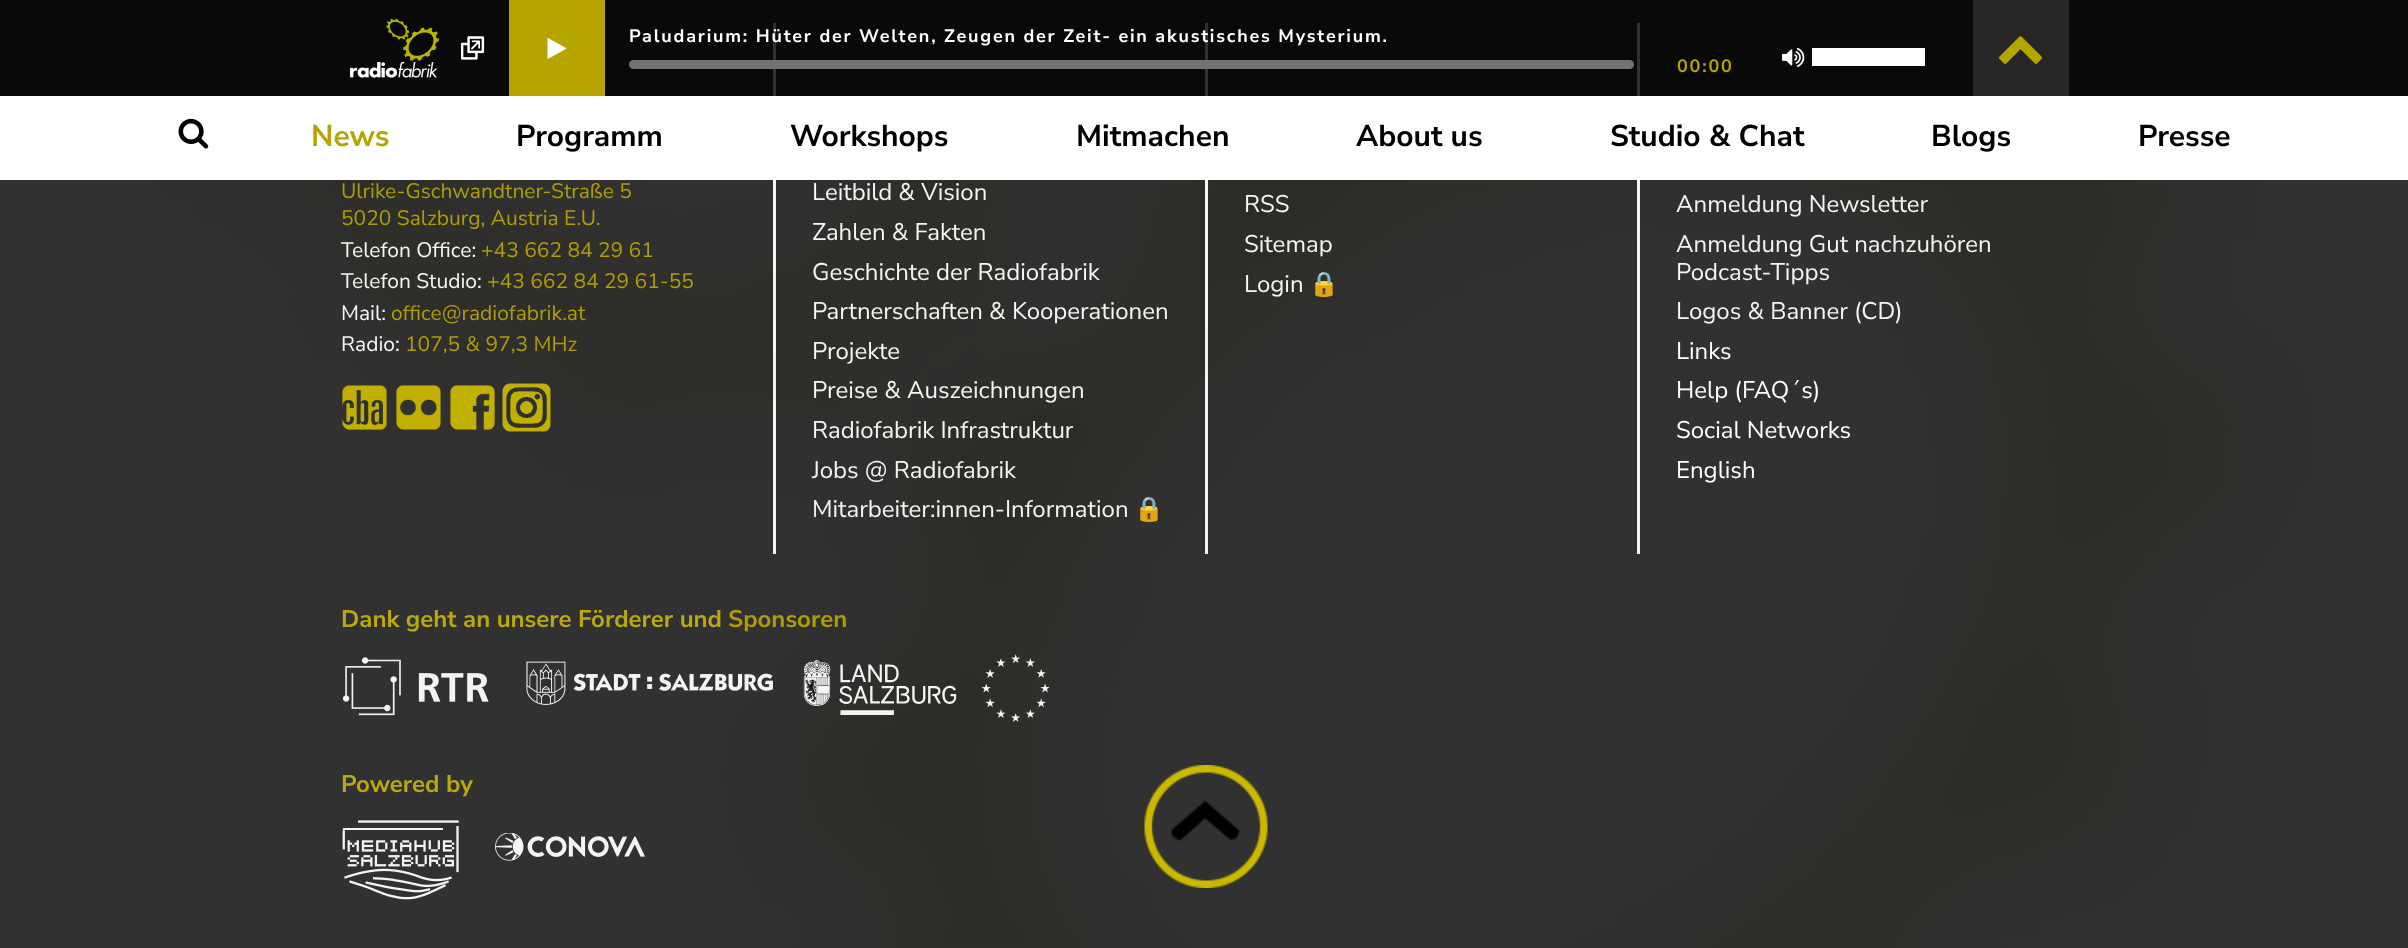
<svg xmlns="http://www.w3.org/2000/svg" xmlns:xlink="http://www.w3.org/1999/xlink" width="2408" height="948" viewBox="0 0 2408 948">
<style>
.cls-1{font:bold 18px Nunito Sans;letter-spacing:1.8px;fill:#ffffff}
.cls-2{font:bold 18px Nunito Sans;letter-spacing:1.8px;fill:#b6a401}
.cls-3{font:bold 30px Nunito Sans;fill:#b6a401}
.cls-4{font:bold 30px Nunito Sans;fill:#000000}
.cls-5{font:21px Nunito Sans;fill:#af9e03}
.cls-6{font:21px Nunito Sans;fill:#f5f5f4}
.cls-7{font:24px Nunito Sans;fill:#f5f5f4}
.cls-8{font:24px Noto Color Emoji;fill:#f5f5f4}
.cls-9{font:24px Nunito Sans;fill:#ffffff}
.cls-10{font:bold 24px Nunito Sans;fill:#baa80e}
.cls-11{font:bold 24px Nunito Sans;fill:#af9e03}
</style>
<rect width="100%" height="100%" fill="#313131"/>
<image xlink:href="image0.png" x="69" y="0" width="2268" height="948"/>
<rect fill="#ffffff" fill-opacity="0.95" x="773" y="23" width="3" height="531"/>
<rect fill="#ffffff" fill-opacity="0.95" x="1205" y="23" width="3" height="531"/>
<rect fill="#ffffff" fill-opacity="0.95" x="1637" y="23" width="3" height="531"/>
<rect fill="#000000" fill-opacity="0.8" x="0" y="0" width="2408" height="96"/>
<image xlink:href="image1.png" x="350" y="18" width="89" height="60"/>
<image xlink:href="image2.png" x="461" y="36" width="24" height="24"/>
<rect fill="#b6a401" x="509" y="0" width="96" height="96"/>
<image xlink:href="image3.png" x="547" y="38" width="20" height="21"/>
<rect fill="#737373" x="629" y="60" width="1005" height="9" rx="4.5"/>
<image xlink:href="image4.png" x="1782" y="47" width="23" height="20"/>
<rect fill="#ffffff" x="1812" y="48" width="113" height="18"/>
<rect fill="#262626" x="1973" y="0" width="96" height="96"/>
<image xlink:href="image5.png" x="1998" y="36" width="45" height="28"/>
<rect fill="#ffffff" x="0" y="96" width="2408" height="84"/>
<image xlink:href="image6.png" x="178" y="118" width="31" height="31"/>
<image xlink:href="image7.png" x="342" y="385" width="45" height="45"/>
<image xlink:href="image8.png" x="396" y="385" width="45" height="45"/>
<image xlink:href="image9.png" x="450" y="385" width="45" height="45"/>
<image xlink:href="image10.png" x="502" y="383" width="49" height="49"/>
<image xlink:href="image11.png" x="342" y="657" width="147" height="59"/>
<image xlink:href="image12.png" x="526" y="661" width="247" height="44"/>
<image xlink:href="image13.png" x="803" y="660" width="154" height="55"/>
<image xlink:href="image14.png" x="981" y="654" width="69" height="68"/>
<image xlink:href="image15.png" x="342" y="820" width="117" height="80"/>
<image xlink:href="image16.png" x="495" y="833" width="150" height="28"/>
<image xlink:href="image17.png" x="1144" y="765" width="124" height="123"/>
<text class="cls-1" x="629" y="42">Paludarium: Hüter der Welten, Zeugen der Zeit- ein akustisches Mysterium.</text>
<text class="cls-2" x="1677" y="72">00:00</text>
<text class="cls-3" x="311" y="146">News</text>
<text class="cls-4" x="516" y="146">Programm</text>
<text class="cls-4" x="790" y="146">Workshops</text>
<text class="cls-4" x="1076" y="146">Mitmachen</text>
<text class="cls-4" x="1356" y="146">About us</text>
<text class="cls-4" x="1610" y="146">Studio &amp; Chat</text>
<text class="cls-4" x="1931" y="146">Blogs</text>
<text class="cls-4" x="2138" y="146">Presse</text>
<text class="cls-5"><tspan x="341" y="198">Ulrike-Gschwandtner-Straße 5</tspan><tspan x="341" y="225">5020 Salzburg, Austria E.U.</tspan></text>
<text class="cls-6" x="341" y="257">Telefon Office:</text>
<text class="cls-5" x="481" y="257">+43 662 84 29 61</text>
<text class="cls-6" x="341" y="288">Telefon Studio:</text>
<text class="cls-5" x="487" y="288">+43 662 84 29 61-55</text>
<text class="cls-6" x="341" y="320">Mail:</text>
<text class="cls-5" x="391" y="320">office@radiofabrik.at</text>
<text class="cls-6" x="341" y="351">Radio:</text>
<text class="cls-5" x="405" y="351">107,5 &amp; 97,3 MHz</text>
<text class="cls-7"><tspan x="812" y="200">Leitbild &amp; Vision</tspan><tspan x="812" y="240">Zahlen &amp; Fakten</tspan><tspan x="812" y="280">Geschichte der Radiofabrik</tspan><tspan x="812" y="319">Partnerschaften &amp; Kooperationen</tspan><tspan x="812" y="359">Projekte</tspan><tspan x="812" y="398">Preise &amp; Auszeichnungen</tspan><tspan x="812" y="438">Radiofabrik Infrastruktur</tspan><tspan x="812" y="478">Jobs @ Radiofabrik</tspan><tspan x="812" y="517">Mitarbeiter:innen-Information</tspan></text>
<text class="cls-8" x="1134" y="517">🔒</text>
<text class="cls-7"><tspan x="1244" y="212">RSS</tspan><tspan x="1244" y="252">Sitemap</tspan><tspan x="1244" y="292">Login</tspan></text>
<text class="cls-8" x="1309" y="292">🔒</text>
<text class="cls-7"><tspan x="1676" y="212">Anmeldung Newsletter</tspan><tspan x="1676" y="252">Anmeldung Gut nachzuhören</tspan><tspan x="1676" y="280">Podcast-Tipps</tspan><tspan x="1676" y="319">Logos &amp; Banner (CD)</tspan></text>
<text class="cls-9"><tspan x="1676" y="359">Links</tspan><tspan x="1676" y="398">Help (FAQ´s)</tspan><tspan x="1676" y="438">Social Networks</tspan><tspan x="1676" y="478">English</tspan></text>
<text class="cls-10" x="341" y="627">Dank geht an unsere Förderer und</text>
<text class="cls-11" x="728" y="627">Sponsoren</text>
<text class="cls-10" x="341" y="792">Powered by</text>
</svg>
